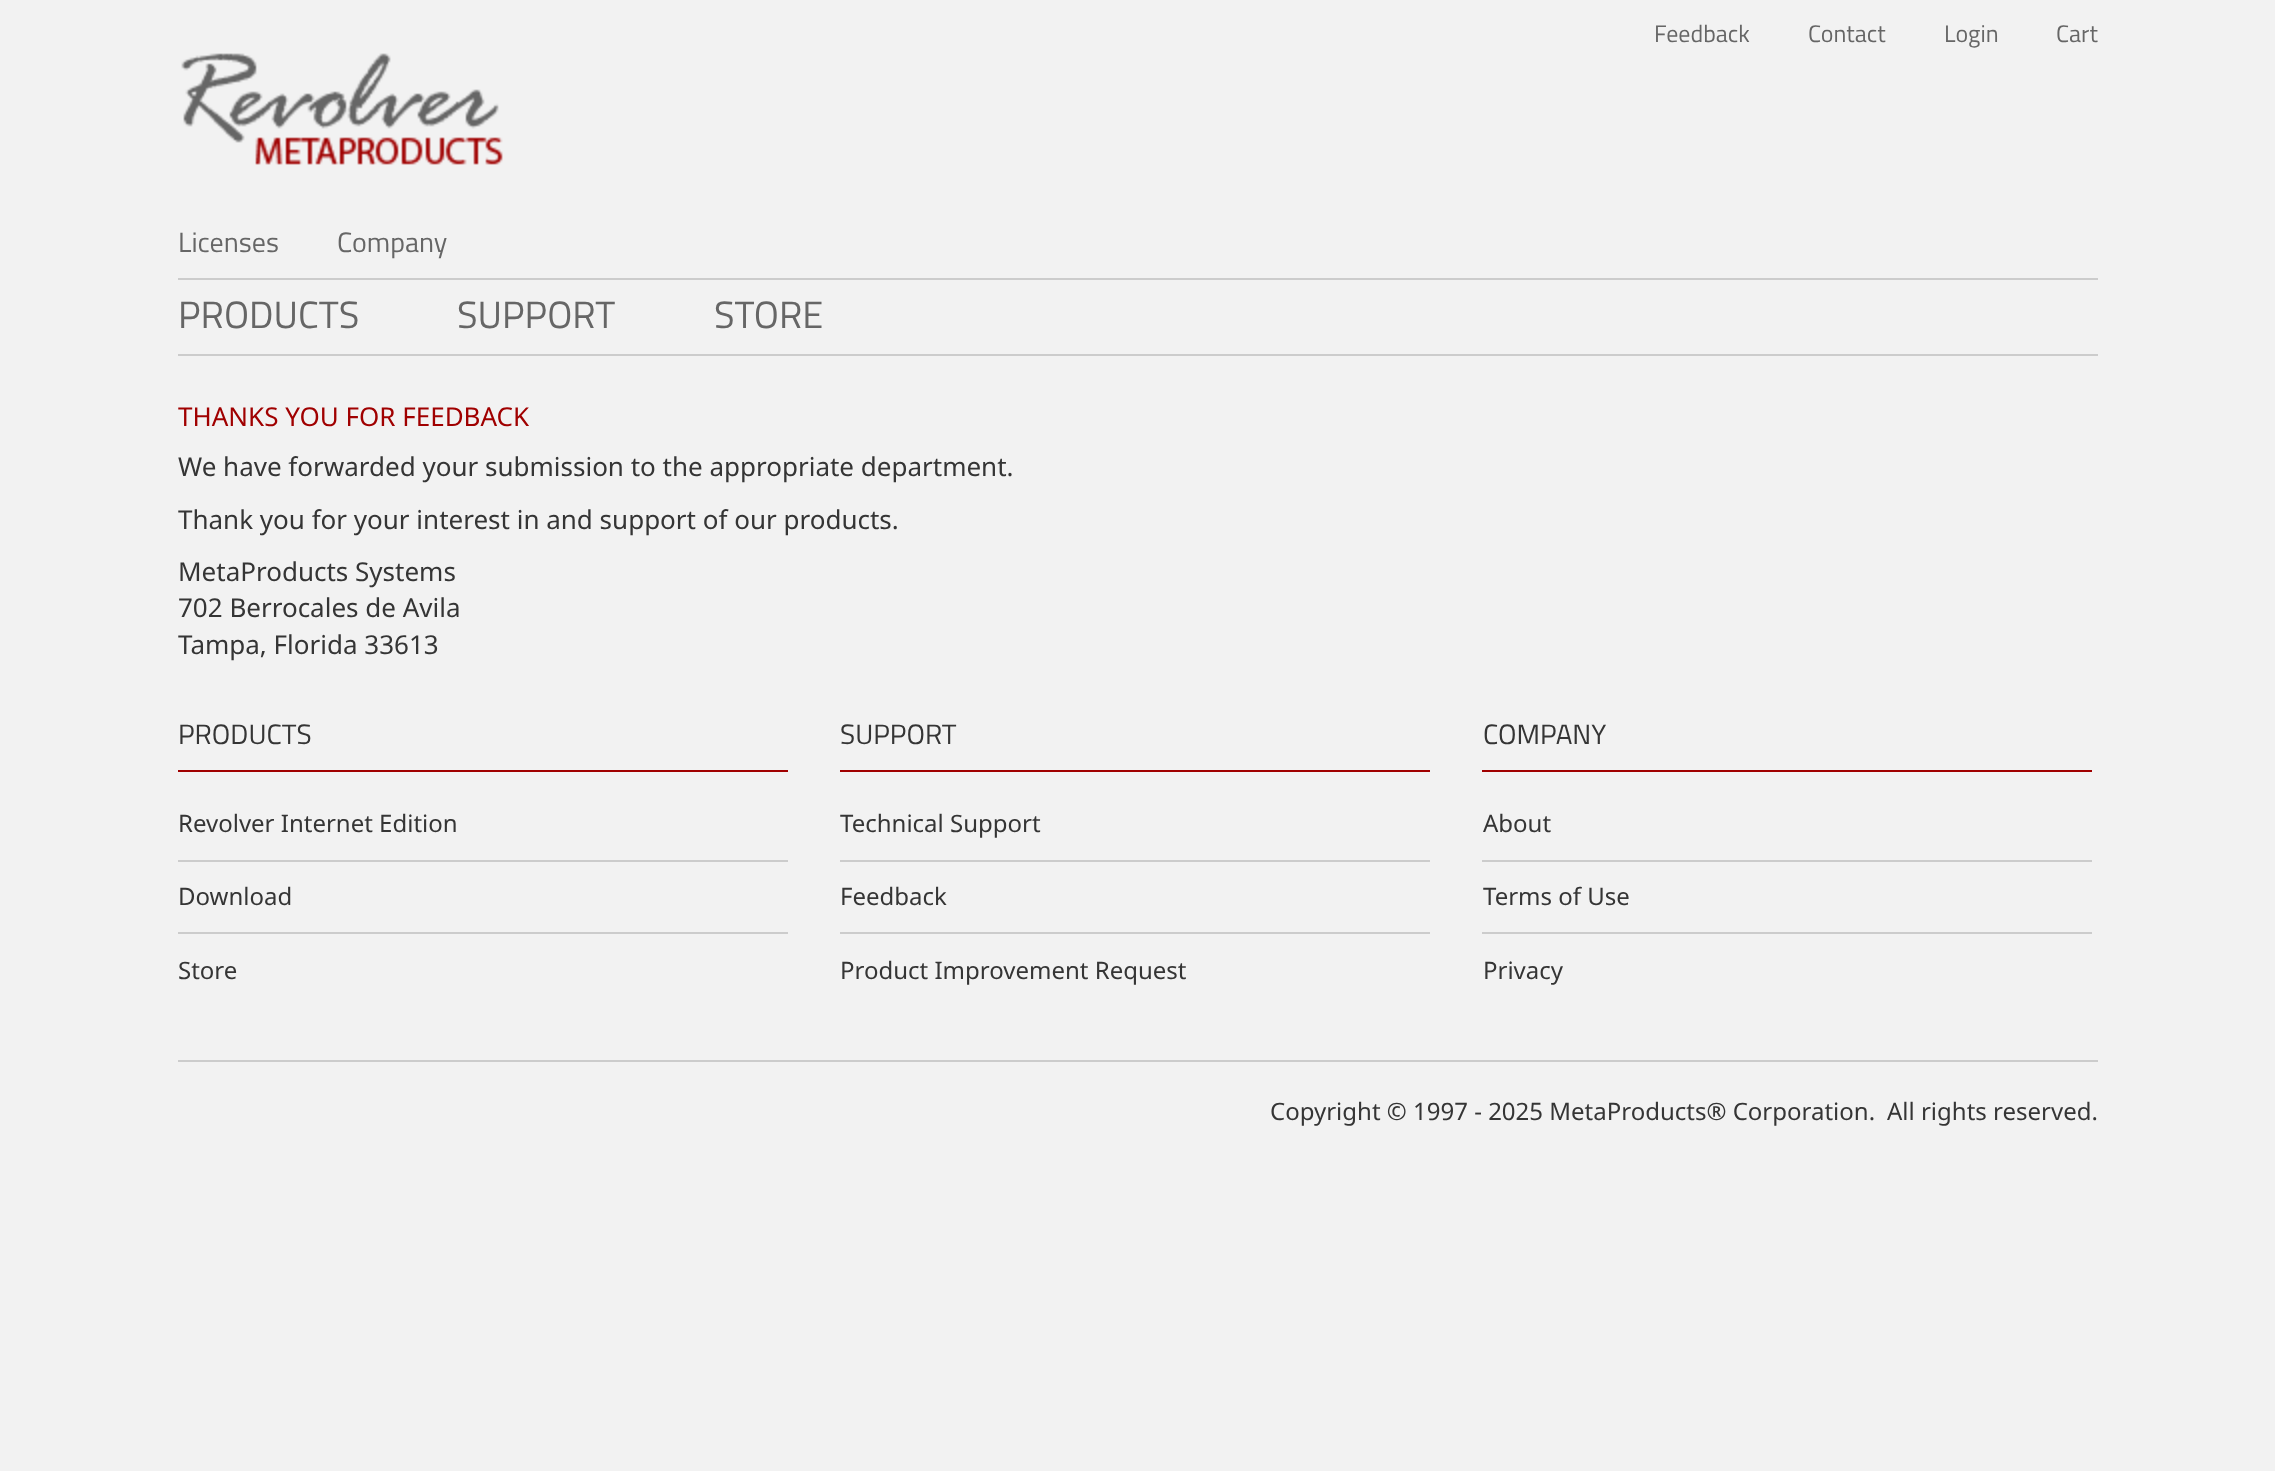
<svg xmlns="http://www.w3.org/2000/svg" xmlns:xlink="http://www.w3.org/1999/xlink" width="2275" height="1471" viewBox="0 0 2275 1471">
<style>
.cls-1{font:24px Titillium Web;fill:#666666}
.cls-2{font:28px Titillium Web;fill:#666666}
.cls-3{font:38px Titillium Web;fill:#666666}
.cls-4{font:26px Noto Sans;fill:#a00000}
.cls-5{font:26px Noto Sans;fill:#353535}
.cls-6{font:28px Titillium Web;fill:#353535}
.cls-7{font:24px Noto Sans;fill:#353535}
</style>
<rect width="100%" height="100%" fill="#f2f2f2"/>
<rect fill="#cccccc" x="178" y="354" width="1920" height="2"/>
<image xlink:href="image0.png" x="181" y="53" width="322" height="112"/>
<rect fill="#cccccc" x="178" y="278" width="1920" height="2"/>
<rect fill="#a00000" x="178" y="770" width="610" height="2"/>
<rect fill="#cccccc" x="178" y="860" width="610" height="2"/>
<rect fill="#cccccc" x="178" y="932" width="610" height="2"/>
<rect fill="#a00000" x="840" y="770" width="590" height="2"/>
<rect fill="#cccccc" x="840" y="860" width="590" height="2"/>
<rect fill="#cccccc" x="840" y="932" width="590" height="2"/>
<rect fill="#a00000" x="1482" y="770" width="610" height="2"/>
<rect fill="#cccccc" x="1482" y="860" width="610" height="2"/>
<rect fill="#cccccc" x="1482" y="932" width="610" height="2"/>
<rect fill="#cccccc" x="178" y="1060" width="1920" height="2"/>
<text class="cls-1" x="1654" y="42">Feedback</text>
<text class="cls-1" x="1808" y="42">Contact</text>
<text class="cls-1" x="1944" y="42">Login</text>
<text class="cls-1" x="2056" y="42">Cart</text>
<text class="cls-2" x="178" y="252">Licenses</text>
<text class="cls-2" x="337" y="252">Company</text>
<text class="cls-3" x="178" y="328">PRODUCTS</text>
<text class="cls-3" x="457" y="328">SUPPORT</text>
<text class="cls-3" x="714" y="328">STORE</text>
<text class="cls-4" x="178" y="426">THANKS YOU FOR FEEDBACK</text>
<text class="cls-5" x="178" y="476">We have forwarded your submission to the appropriate department.</text>
<text class="cls-5" x="178" y="529">Thank you for your interest in and support of our products.</text>
<text class="cls-5"><tspan x="178" y="581">MetaProducts Systems</tspan><tspan x="178" y="617">702 Berrocales de Avila</tspan><tspan x="178" y="654">Tampa, Florida 33613</tspan></text>
<text class="cls-6" x="178" y="744">PRODUCTS</text>
<text class="cls-7" x="178" y="832">Revolver Internet Edition</text>
<text class="cls-7" x="178" y="905">Download</text>
<text class="cls-7" x="178" y="979">Store</text>
<text class="cls-6" x="840" y="744">SUPPORT</text>
<text class="cls-7" x="840" y="832">Technical Support</text>
<text class="cls-7" x="840" y="905">Feedback</text>
<text class="cls-7" x="840" y="979">Product Improvement Request</text>
<text class="cls-6" x="1483" y="744">COMPANY</text>
<text class="cls-7" x="1483" y="832">About</text>
<text class="cls-7" x="1483" y="905">Terms of Use</text>
<text class="cls-7" x="1483" y="979">Privacy</text>
<text class="cls-7" x="1270" y="1120">Copyright © 1997 - 2025 MetaProducts® Corporation.</text>
<text class="cls-7" x="1887" y="1120">All rights reserved.</text>
</svg>
